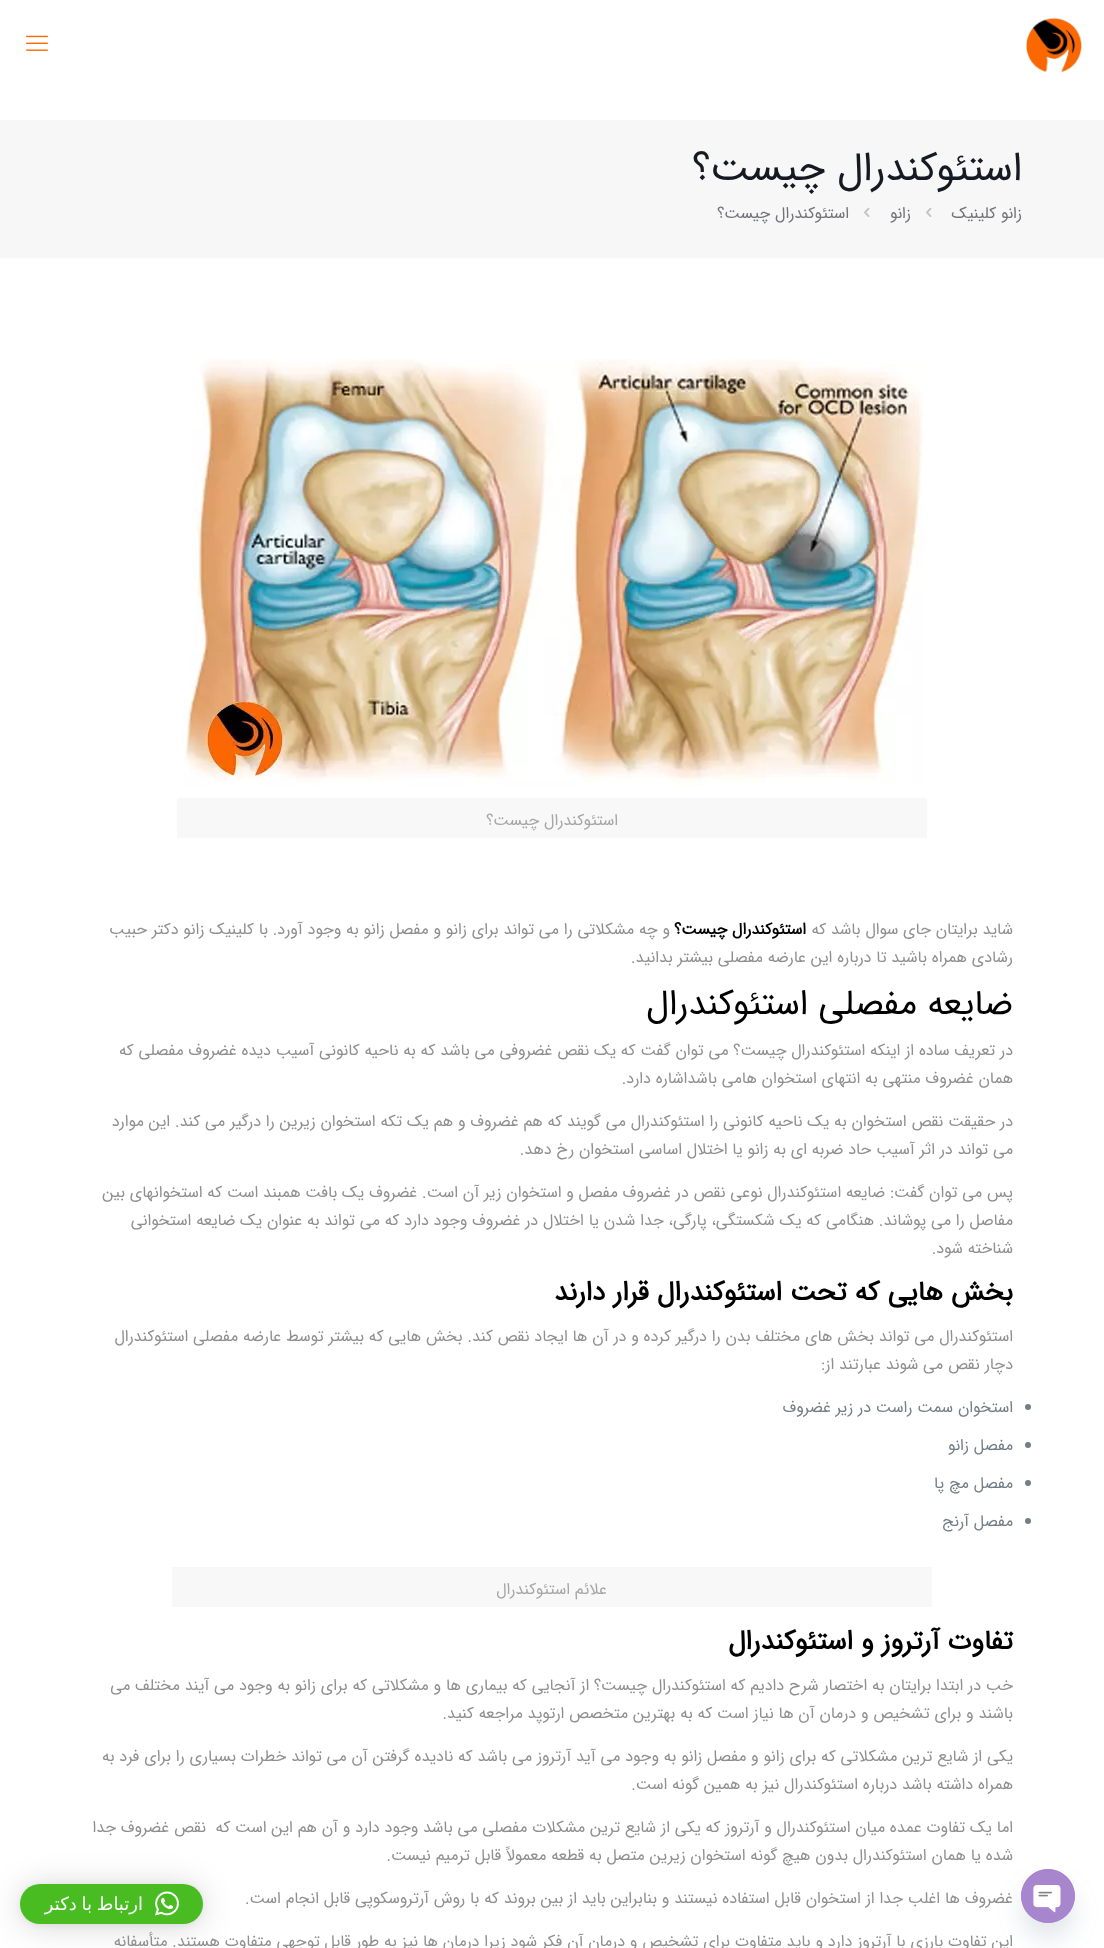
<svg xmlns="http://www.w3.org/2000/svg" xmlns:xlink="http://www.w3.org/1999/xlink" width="1104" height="1948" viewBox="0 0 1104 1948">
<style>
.cls-1{font:40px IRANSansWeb;direction:rtl;fill:#161922}
.cls-2{font:16px IRANSansWeb;direction:rtl;fill:#707277}
.cls-3{font:16px IRANSansWeb;direction:rtl;fill:#a6a6a6}
.cls-4{font:16px IRANSansWeb;direction:rtl;fill:#8f8f8f}
.cls-5{font:bold 16px IRANSansWeb;direction:rtl;fill:#000000}
.cls-6{font:35px IRANSansWeb;direction:rtl;fill:#000000}
.cls-7{font:bold 27px IRANSansWeb;direction:rtl;fill:#000000}
.cls-8{font:16px IRANSansWeb;direction:rtl;fill:#737e86}
.cls-9{font:18px DejaVu Sans;direction:rtl;fill:#ffffff}
</style>
<rect width="100%" height="100%" fill="#ffffff"/>
<rect fill="#49687e" fill-opacity="0.16" filter="blur(12px)" x="1021" y="1885" width="54" height="54" rx="27"/>
<circle fill="#a886cd" cx="1048" cy="1896" r="27"/>
<image xlink:href="image0.png" x="1021" y="1869" width="54" height="54"/>
<image xlink:href="image1.png" x="1026" y="17" width="56" height="56"/>
<image xlink:href="image2.png" x="26" y="35" width="22" height="16"/>
<rect fill="#f7f7f7" x="0" y="120" width="1104" height="138"/>
<image xlink:href="image3.png" x="926" y="207" width="6" height="10"/>
<image xlink:href="image3.png" x="864" y="207" width="6" height="10"/>
<image xlink:href="image4.png" x="183" y="358" width="741" height="428"/>
<rect fill="#f8f8f8" x="177" y="798" width="750" height="40"/>
<circle fill="#737e86" cx="1028" cy="1407" r="3"/>
<circle fill="#737e86" cx="1028" cy="1445" r="3"/>
<circle fill="#737e86" cx="1028" cy="1483" r="3"/>
<circle fill="#737e86" cx="1028" cy="1521" r="3"/>
<rect fill="#f8f8f8" x="172" y="1567" width="760" height="40"/>
<rect fill="#000000" fill-opacity="0.16" filter="blur(16px)" x="20" y="1886" width="183" height="40" rx="20"/>
<rect fill="#000000" fill-opacity="0.06" filter="blur(3px)" x="20" y="1885" width="183" height="40" rx="20"/>
<rect fill="#48bc21" x="20" y="1884" width="183" height="40" rx="20"/>
<image xlink:href="image5.png" x="155" y="1891" width="24" height="25"/>
<text class="cls-1" x="1022" y="180">استئوکندرال چیست؟</text>
<text class="cls-2" x="1022" y="218">زانو کلینیک</text>
<text class="cls-2" x="911" y="218">زانو</text>
<text class="cls-2" x="849" y="218">استئوکندرال چیست؟</text>
<text class="cls-3" x="618" y="825">استئوکندرال چیست؟</text>
<text class="cls-4" x="1013" y="934">شاید برایتان جای سوال باشد که</text>
<text class="cls-5" x="806" y="934">استئوکندرال چیست؟</text>
<text class="cls-4" x="670" y="934">و چه مشکلاتی را می تواند برای زانو و مفصل زانو به وجود آورد. با کلینیک زانو دکتر حبیب</text>
<text class="cls-4" x="1013" y="962">رشادی همراه باشید تا درباره این عارضه مفصلی بیشتر بدانید.</text>
<text class="cls-6" x="1013" y="1014">ضایعه مفصلی استئوکندرال</text>
<text class="cls-4"><tspan x="1013" y="1055">در تعریف ساده از اینکه استئوکندرال چیست؟ می توان گفت که یک نقص غضروفی می باشد که به ناحیه کانونی آسیب دیده غضروف مفصلی که</tspan><tspan x="1013" y="1083">همان غضروف منتهی به انتهای استخوان هامی باشداشاره دارد.</tspan></text>
<text class="cls-4"><tspan x="1013" y="1126">در حقیقت نقص استخوان به یک ناحیه کانونی را استئوکندرال می گویند که هم غضروف و هم یک تکه استخوان زیرین را درگیر می کند. این موارد</tspan><tspan x="1013" y="1154">می تواند در اثر آسیب حاد ضربه ای به زانو یا اختلال اساسی استخوان رخ دهد.</tspan></text>
<text class="cls-4"><tspan x="1013" y="1197">پس می توان گفت: ضایعه استئوکندرال نوعی نقص در غضروف مفصل و استخوان زیر آن است. غضروف یک بافت همبند است که استخوانهای بین</tspan><tspan x="1013" y="1225">مفاصل را می پوشاند. هنگامی که یک شکستگی، پارگی، جدا شدن یا اختلال در غضروف وجود دارد که می تواند به عنوان یک ضایعه استخوانی</tspan><tspan x="1013" y="1253">شناخته شود.</tspan></text>
<text class="cls-7" x="1013" y="1300">بخش هایی که تحت استئوکندرال قرار دارند</text>
<text class="cls-4"><tspan x="1013" y="1341">استئوکندرال می تواند بخش های مختلف بدن را درگیر کرده و در آن ها ایجاد نقص کند. بخش هایی که بیشتر توسط عارضه مفصلی استئوکندرال</tspan><tspan x="1013" y="1369">دچار نقص می شوند عبارتند از:</tspan></text>
<text class="cls-8" x="1013" y="1412">استخوان سمت راست در زیر غضروف</text>
<text class="cls-8" x="1013" y="1450">مفصل زانو</text>
<text class="cls-8" x="1013" y="1488">مفصل مچ پا</text>
<text class="cls-8" x="1013" y="1526">مفصل آرنج</text>
<text class="cls-3" x="607" y="1594">علائم استئوکندرال</text>
<text class="cls-7" x="1013" y="1649">تفاوت آرتروز و استئوکندرال</text>
<text class="cls-4"><tspan x="1013" y="1690">خب در ابتدا برایتان به اختصار شرح دادیم که استئوکندرال چیست؟ از آنجایی که بیماری ها و مشکلاتی که برای زانو به وجود می آیند مختلف می</tspan><tspan x="1013" y="1718">باشند و برای تشخیص و درمان آن ها نیاز است که به بهترین متخصص ارتوپد مراجعه کنید.</tspan></text>
<text class="cls-4"><tspan x="1013" y="1761">یکی از شایع ترین مشکلاتی که برای زانو و مفصل زانو به وجود می آید آرتروز می باشد که نادیده گرفتن آن می تواند خطرات بسیاری را برای فرد به</tspan><tspan x="1013" y="1789">همراه داشته باشد درباره استئوکندرال نیز به همین گونه است.</tspan></text>
<text class="cls-4" xml:space="preserve"><tspan x="1013" y="1832">اما یک تفاوت عمده میان استئوکندرال و آرتروز که یکی از شایع ترین مشکلات مفصلی می باشد وجود دارد و آن هم این است که  نقص غضروف جدا</tspan><tspan x="1013" y="1860">شده یا همان استئوکندرال بدون هیچ گونه استخوان زیرین متصل به قطعه معمولاً قابل ترمیم نیست.</tspan></text>
<text class="cls-4" x="1013" y="1903">غضروف ها اغلب جدا از استخوان قابل استفاده نیستند و بنابراین باید از بین بروند که با روش آرتروسکوپی قابل انجام است.</text>
<text class="cls-4" x="1013" y="1946">این تفاوت بارزی با آرتروز دارد و باید متفاوت برای تشخیص و درمان آن فکر شود زیرا درمان ها نیز به طور قابل توجهی متفاوت هستند. متأسفانه</text>
<text class="cls-9" x="143" y="1910" word-spacing="-1">ارتباط با دکتر</text>
</svg>
